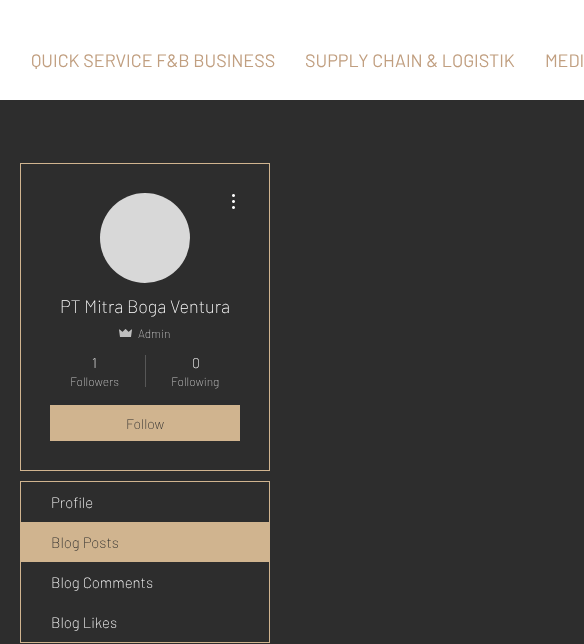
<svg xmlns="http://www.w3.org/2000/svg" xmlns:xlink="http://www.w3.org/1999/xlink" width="584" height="644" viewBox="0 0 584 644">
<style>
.cls-1{font:18px Barlow;fill:#c19f80}
.cls-2{font:200 18px Barlow;fill:#ffffff}
.cls-3{font:200 12px Barlow;fill:#c0c0c0}
.cls-4{font:200 14px Barlow;fill:#ffffff}
.cls-5{font:200 14px Barlow;fill:#2d2d2d}
.cls-6{font:200 15px Barlow;fill:#ffffff}
.cls-7{font:200 15px Barlow;fill:#2d2d2d}
</style>
<rect width="100%" height="100%" fill="#2d2d2d"/>
<rect fill="#ffffff" x="0" y="0" width="584" height="100"/>
<rect fill="none" stroke="#d0b48f" x="20.5" y="163.5" width="249" height="307"/>
<circle fill="#d8d8d8" cx="145" cy="238" r="45"/>
<image xlink:href="image0.png" x="232" y="194" width="3" height="15"/>
<image xlink:href="image1.png" x="119" y="329" width="13" height="8"/>
<rect fill="#575757" x="145" y="355" width="1" height="32"/>
<rect fill="#d0b48f" x="50" y="405" width="190" height="36"/>
<rect fill="none" stroke="#d0b48f" x="20.5" y="481.5" width="249" height="161"/>
<rect fill="#d0b48f" x="21" y="522" width="248" height="40"/>
<text class="cls-1" x="31" y="67">QUICK SERVICE F&amp;B BUSINESS</text>
<text class="cls-1" x="305" y="67">SUPPLY CHAIN &amp; LOGISTIK</text>
<text class="cls-1" x="545" y="67">MEDI</text>
<text class="cls-2" x="60" y="313">PT Mitra Boga Ventura</text>
<text class="cls-3" x="138" y="338">Admin</text>
<text class="cls-4" x="92" y="368">1</text>
<text class="cls-3" x="70" y="386">Followers</text>
<text class="cls-4" x="192" y="368">0</text>
<text class="cls-3" x="171" y="386">Following</text>
<text class="cls-5" x="126" y="429">Follow</text>
<text class="cls-6" x="51" y="508">Profile</text>
<text class="cls-7" x="51" y="548">Blog Posts</text>
<text class="cls-6" x="51" y="588">Blog Comments</text>
<text class="cls-6" x="51" y="628">Blog Likes</text>
</svg>
